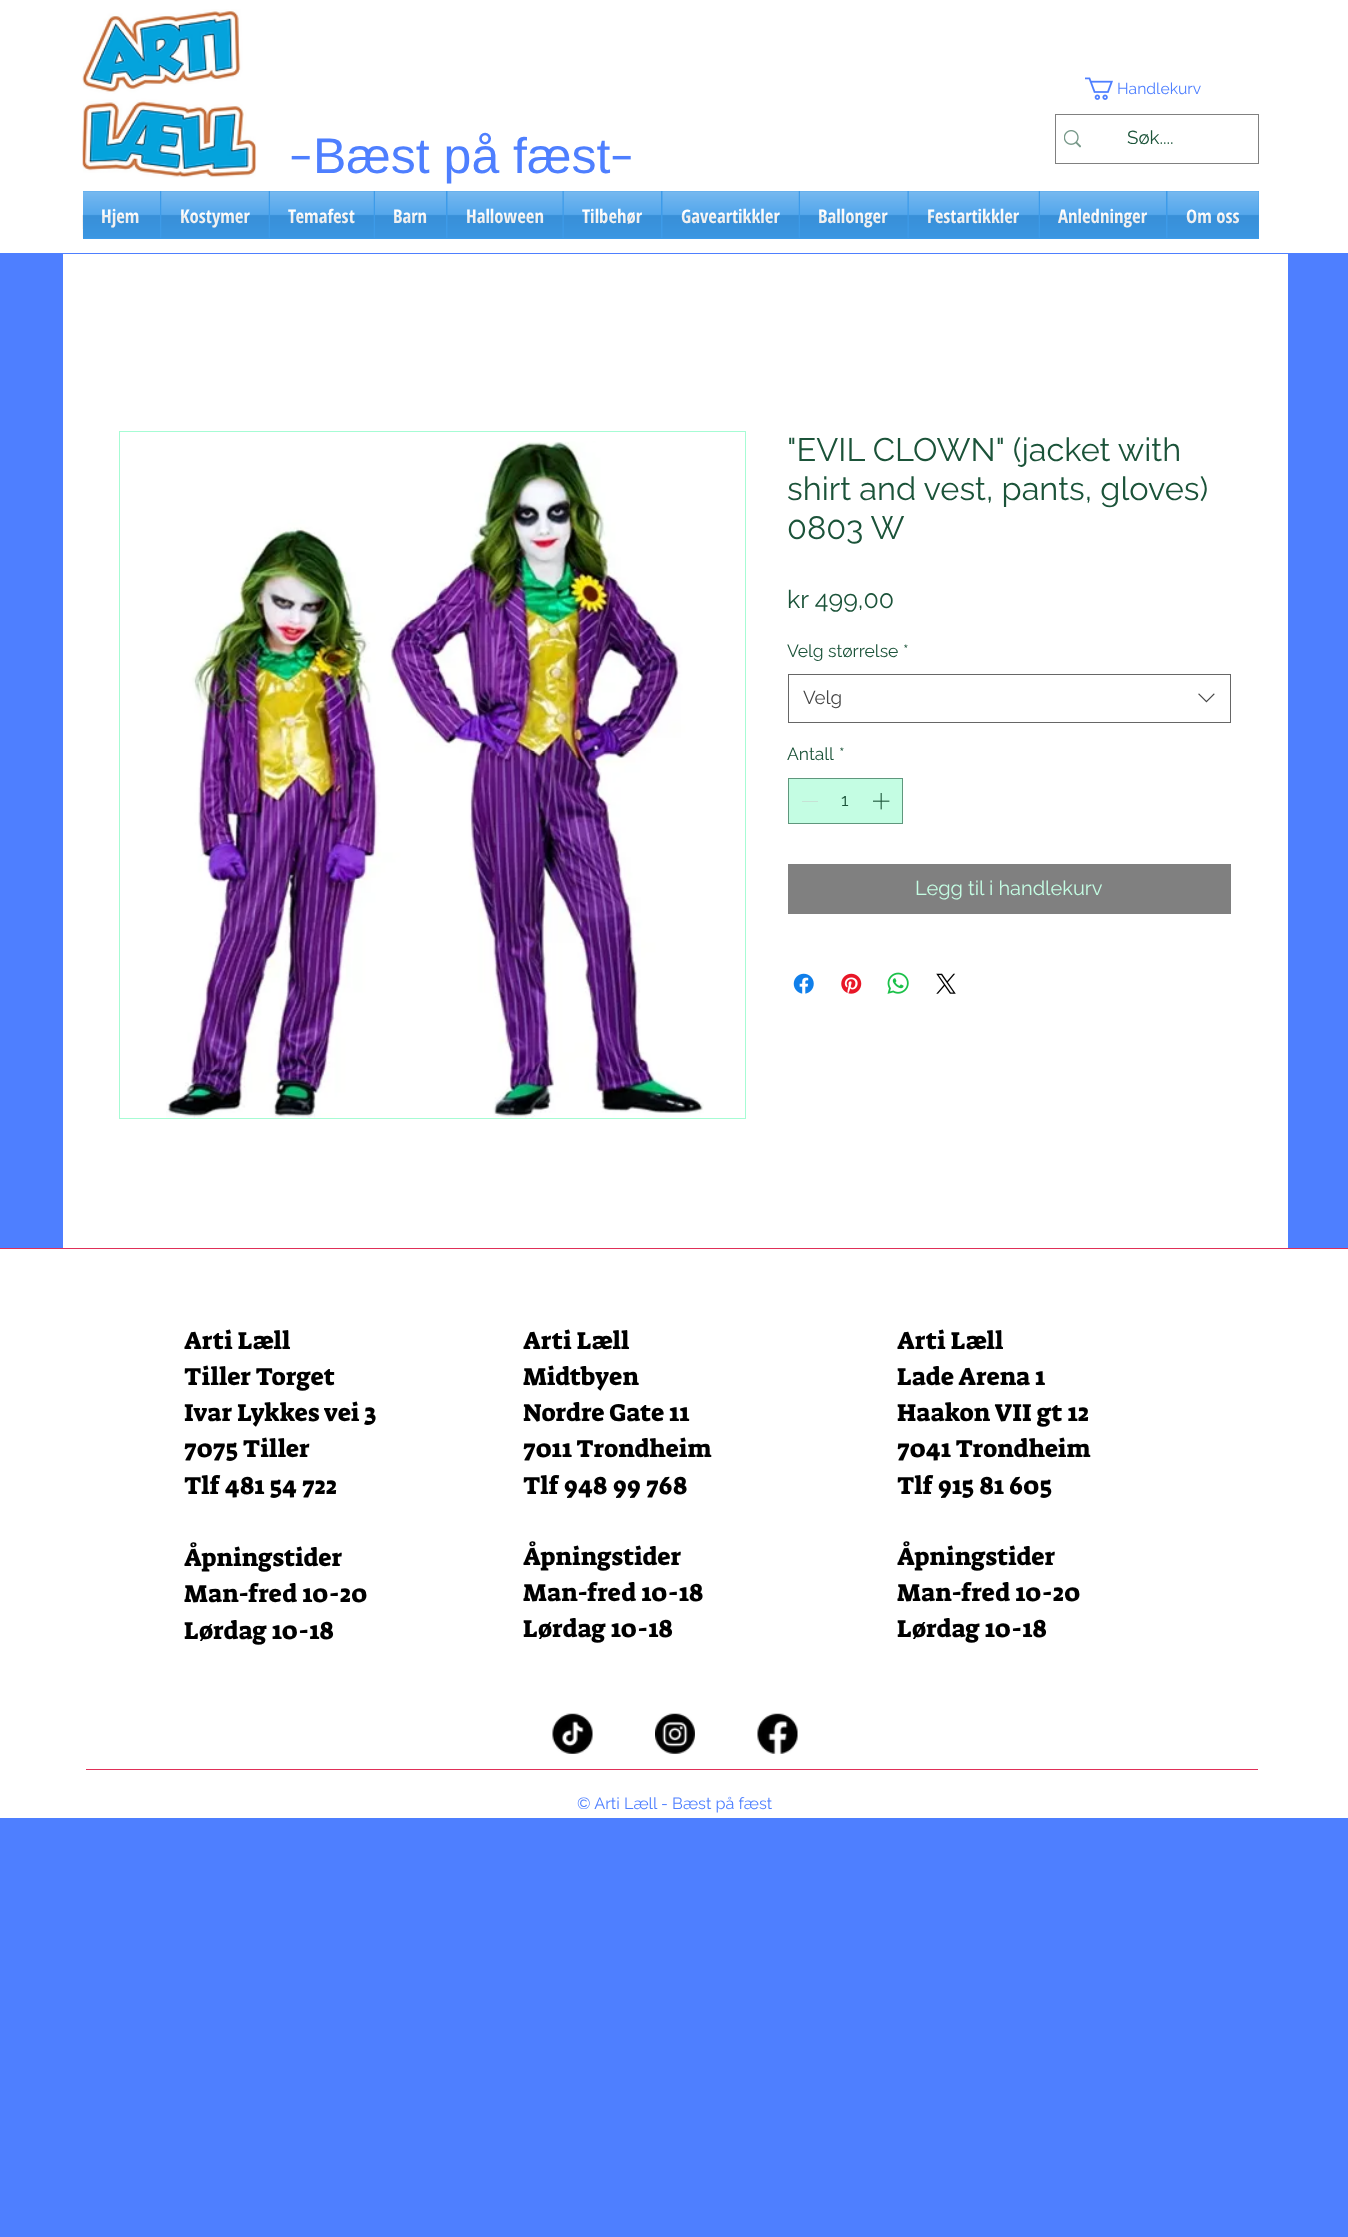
<svg xmlns="http://www.w3.org/2000/svg" xmlns:xlink="http://www.w3.org/1999/xlink" width="1348" height="2237" viewBox="0 0 1348 2237">
<style>
.cls-1{font:15.75px Raleway;fill:#4e7fff}
.cls-2{font:50px 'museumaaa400';fill:#4e7fff}
.cls-3{font:50px Liberation Sans;fill:#4e7fff}
.cls-4{font:18.75px Raleway;fill:#1b5339}
.cls-5{font:bold 18.75px Open Sans Condensed;fill:#ffffff}
.cls-6{font:32.5px Raleway;fill:#1b5339}
.cls-7{font:25px Raleway;fill:#1b5339}
.cls-8{font:17.5px Raleway;fill:#1b5339}
.cls-9{font:18.75px Raleway;fill:#444444}
.cls-10{font:20px Raleway;fill:#c4fde3}
.cls-11{font:25px Suez One;fill:#000000}
.cls-12{font:16.25px Raleway;fill:#4e7fff}
</style>
<rect width="100%" height="100%" fill="#4e7fff"/>
<rect fill="#ffffff" x="0" y="0" width="1348" height="253"/>
<image xlink:href="image0.png" x="82" y="9" width="175" height="169"/>
<image xlink:href="image1.png" x="1085" y="77" width="28" height="23"/>
<rect fill="none" stroke="#808080" x="1055.5" y="114.5" width="203" height="49"/>
<image xlink:href="image2.png" x="1064" y="130" width="17" height="18"/>
<image xlink:href="image3.png" x="82" y="191" width="1" height="38"/>
<rect fill="#3d9be9" x="83" y="191" width="1176" height="48"/>
<rect fill="#ffffff" x="63" y="254" width="1225" height="994"/>
<rect fill="none" stroke="#a6fcd4" x="119.5" y="431.5" width="626" height="687"/>
<image xlink:href="image15.png" x="166" y="441" width="538" height="677"/>
<rect fill="none" stroke="#666666" x="788.5" y="674.5" width="442" height="48"/>
<image xlink:href="image16.png" x="1198" y="693" width="17" height="10"/>
<rect fill="#c4fde3" stroke="#5f977d" x="788.5" y="778.5" width="114" height="45"/>
<rect fill="#c6e2d5" x="802" y="801" width="16" height="1"/>
<image xlink:href="image17.png" x="873" y="793" width="17" height="17"/>
<rect fill="#808080" x="788" y="864" width="443" height="50"/>
<image xlink:href="image18.png" x="793" y="973" width="21" height="21"/>
<image xlink:href="image19.png" x="841" y="973" width="21" height="21"/>
<image xlink:href="image20.png" x="887" y="972" width="22" height="22"/>
<image xlink:href="image21.png" x="936" y="973" width="20" height="21"/>
<rect fill="#ffffff" x="0" y="1249" width="1348" height="569"/>
<rect fill="#e02f58" x="0" y="1248" width="1348" height="1"/>
<image xlink:href="image22.png" x="552" y="1713" width="41" height="41"/>
<image xlink:href="image23.png" x="655" y="1713" width="40" height="41"/>
<image xlink:href="image24.png" x="757" y="1713" width="41" height="41"/>
<rect fill="#e02f58" x="86" y="1769" width="1172" height="1"/>
<text class="cls-1" x="1117" y="94">Handlekurv</text>
<text class="cls-2" x="289" y="173">-</text>
<text class="cls-3" x="313" y="173">Bæst på fæst</text>
<text class="cls-2" x="610" y="173">-</text>
<text class="cls-4" x="1127" y="144">Søk....</text>
<text class="cls-5" x="101" y="223">Hjem</text>
<image xlink:href="image4.png" x="82" y="191" width="78" height="47"/>
<text class="cls-5" x="180" y="223">Kostymer</text>
<image xlink:href="image5.png" x="161" y="191" width="108" height="47"/>
<text class="cls-5" x="288" y="223">Temafest</text>
<image xlink:href="image6.png" x="270" y="191" width="104" height="47"/>
<text class="cls-5" x="393" y="223">Barn</text>
<image xlink:href="image7.png" x="375" y="191" width="71" height="47"/>
<text class="cls-5" x="466" y="223">Halloween</text>
<image xlink:href="image8.png" x="447" y="191" width="116" height="47"/>
<text class="cls-5" x="582" y="223">Tilbehør</text>
<image xlink:href="image9.png" x="563" y="191" width="98" height="47"/>
<text class="cls-5" x="681" y="223">Gaveartikkler</text>
<image xlink:href="image10.png" x="662" y="191" width="137" height="47"/>
<text class="cls-5" x="818" y="223">Ballonger</text>
<image xlink:href="image11.png" x="800" y="191" width="108" height="47"/>
<text class="cls-5" x="927" y="223">Festartikkler</text>
<image xlink:href="image12.png" x="908" y="191" width="131" height="47"/>
<text class="cls-5" x="1058" y="223">Anledninger</text>
<image xlink:href="image13.png" x="1040" y="191" width="126" height="47"/>
<text class="cls-5" x="1186" y="223">Om oss</text>
<image xlink:href="image14.png" x="1167" y="191" width="92" height="47"/>
<text class="cls-6"><tspan x="787" y="461">"EVIL CLOWN" (jacket with</tspan><tspan x="787" y="500">shirt and vest, pants, gloves)</tspan><tspan x="787" y="539">0803 W</tspan></text>
<text class="cls-7" x="787" y="608">kr 499,00</text>
<text class="cls-8" x="787" y="657">Velg størrelse</text>
<text class="cls-8" x="903" y="657">*</text>
<text class="cls-9" x="803" y="704">Velg</text>
<text class="cls-8" x="787" y="760">Antall</text>
<text class="cls-8" x="839" y="760">*</text>
<text class="cls-8" x="841" y="806">1</text>
<text class="cls-10" x="915" y="895">Legg til i handlekurv</text>
<text class="cls-11"><tspan x="184" y="1349">Arti Læll</tspan><tspan x="184" y="1385">Tiller Torget</tspan><tspan x="184" y="1421">Ivar Lykkes vei 3</tspan><tspan x="184" y="1457">7075 Tiller</tspan><tspan x="184" y="1494">Tlf 481 54 722</tspan></text>
<text class="cls-11"><tspan x="184" y="1566">Åpningstider</tspan><tspan x="184" y="1602">Man-fred 10-20</tspan><tspan x="184" y="1639">Lørdag 10-18</tspan></text>
<text class="cls-11"><tspan x="523" y="1349">Arti Læll</tspan><tspan x="523" y="1385">Midtbyen</tspan><tspan x="523" y="1421">Nordre Gate 11</tspan><tspan x="523" y="1457">7011 Trondheim</tspan><tspan x="523" y="1494">Tlf 948 99 768</tspan></text>
<text class="cls-11"><tspan x="523" y="1565">Åpningstider</tspan><tspan x="523" y="1601">Man-fred 10-18</tspan><tspan x="523" y="1637">Lørdag 10-18</tspan></text>
<text class="cls-11"><tspan x="897" y="1349">Arti Læll</tspan><tspan x="897" y="1385">Lade Arena 1</tspan><tspan x="897" y="1421">Haakon VII gt 12</tspan><tspan x="897" y="1457">7041 Trondheim</tspan><tspan x="897" y="1494">Tlf 915 81 605</tspan></text>
<text class="cls-11"><tspan x="897" y="1565">Åpningstider</tspan><tspan x="897" y="1601">Man-fred 10-20</tspan><tspan x="897" y="1637">Lørdag 10-18</tspan></text>
<text class="cls-12" x="577" y="1809">© Arti Læll - Bæst på fæst</text>
</svg>
